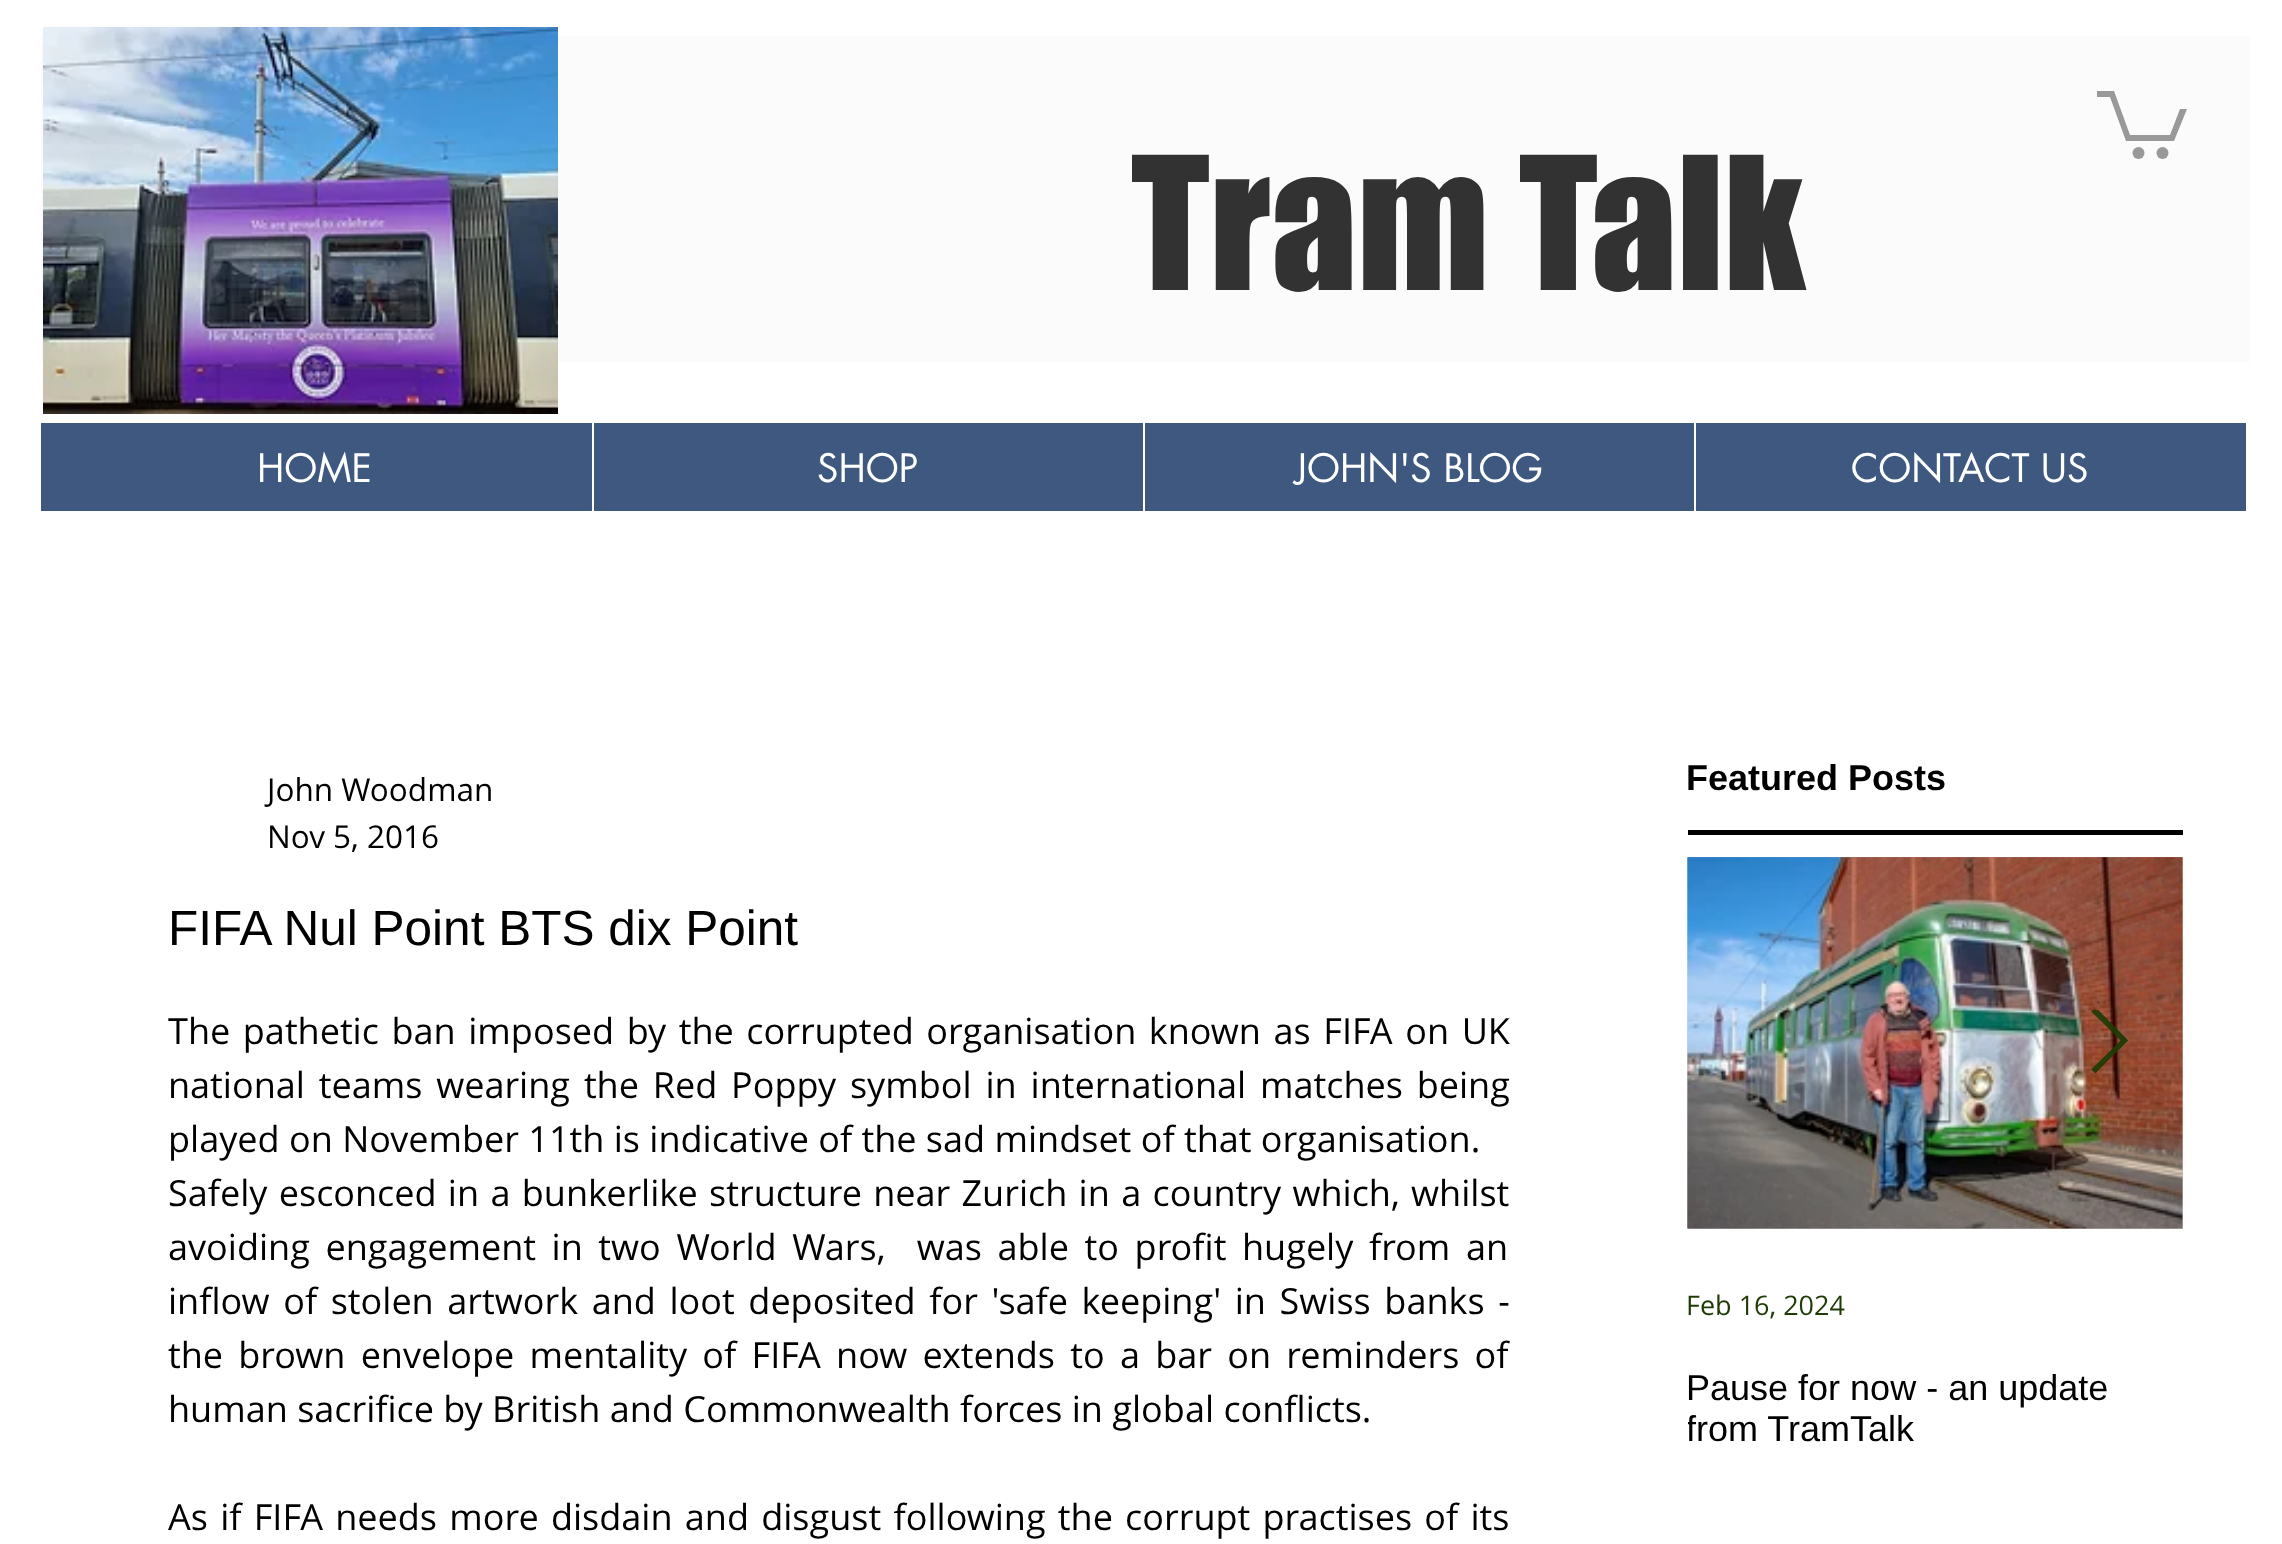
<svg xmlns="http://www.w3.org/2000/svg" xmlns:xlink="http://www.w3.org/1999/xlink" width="2282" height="1544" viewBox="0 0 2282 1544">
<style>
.cls-1{font:171px 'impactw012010';fill:#323232}
.cls-2{font:38.25px futura;fill:#ffffff}
.cls-3{font:31.5px Open Sans;fill:#000000}
.cls-4{font:49.5px Liberation Sans;fill:#000000}
.cls-5{font:36px Open Sans;fill:#000000}
.cls-6{font:bold 36px Liberation Sans;fill:#000000}
.cls-7{font:27px Open Sans;fill:#1f3b05}
.cls-8{font:36px Liberation Sans;fill:#000000}
</style>
<defs>
<clipPath id="clip1"><rect x="2088" y="1010" width="43" height="68"/></clipPath>
<clipPath id="clip2"><rect x="1688" y="1368" width="495" height="81"/></clipPath>
</defs>
<rect width="100%" height="100%" fill="#ffffff"/>
<rect fill="#fbfbfb" x="41" y="36" width="2209" height="326"/>
<image xlink:href="image0.png" x="43" y="27" width="515" height="387"/>
<path fill="#9a9999" d="M2187 109L2174 141H2126L2110 97H2097V91H2114L2130 135H2170L2180 109"/>
<circle fill="#9a9999" cx="2162.5" cy="153" r="6"/>
<circle fill="#9a9999" cx="2138.5" cy="153" r="6"/>
<rect fill="#3e587f" x="41" y="423" width="2205" height="88"/>
<rect fill="#ffffff" x="592" y="423" width="2" height="88"/>
<rect fill="#ffffff" x="1143" y="423" width="2" height="88"/>
<rect fill="#ffffff" x="1694" y="423" width="2" height="88"/>
<rect fill="#000000" x="1688" y="830" width="495" height="5"/>
<image xlink:href="image1.png" x="1687" y="857" width="496" height="372"/>
<image xlink:href="image2.png" x="1687" y="857" width="496" height="372"/>
<path fill="#1f3b05" fill-opacity="0.9" d="M2093 1011L2095 1009L2127 1040L2095 1072L2093 1070L2122 1040Z"/>
<g clip-path="url(#clip1)">
<path fill="none" stroke="#1f3b05" stroke-opacity="0.9" stroke-width="1.8" d="M2092.5 1011.5L2095.5 1008.5L2127 1040.5L2095.5 1072L2092.5 1069.5L2122 1040.5Z"/>
</g>
<text class="cls-1" x="1131" y="290">Tram Talk</text>
<text class="cls-2" x="257" y="482">HOME</text>
<text class="cls-2" x="817" y="482">SHOP</text>
<text class="cls-2" x="1295" y="482">JOHN'S BLOG</text>
<text class="cls-2" x="1851" y="482">CONTACT US</text>
<text class="cls-3"><tspan x="267" y="801">John Woodman</tspan><tspan x="267" y="848">Nov 5, 2016</tspan></text>
<text class="cls-4" x="168" y="945">FIFA Nul Point BTS dix Point</text>
<text class="cls-5" xml:space="preserve"><tspan x="168" y="1044" word-spacing="3.25">The pathetic ban imposed by the corrupted organisation known as FIFA on UK</tspan><tspan x="168" y="1098" word-spacing="4.5">national teams wearing the Red Poppy symbol in international matches being</tspan><tspan x="168" y="1152">played on November 11th is indicative of the sad mindset of that organisation.</tspan><tspan x="168" y="1206" word-spacing="2">Safely esconced in a bunkerlike structure near Zurich in a country which, whilst</tspan><tspan x="168" y="1260" word-spacing="6.25">avoiding engagement in two World Wars,  was able to profit hugely from an</tspan><tspan x="168" y="1314" word-spacing="4.25">inflow of stolen artwork and loot deposited for 'safe keeping' in Swiss banks -</tspan><tspan x="168" y="1368" word-spacing="5.9">the brown envelope mentality of FIFA now extends to a bar on reminders of</tspan><tspan x="168" y="1422">human sacrifice by British and Commonwealth forces in global conflicts.</tspan></text>
<text class="cls-5" x="168" y="1530" word-spacing="2.9">As if FIFA needs more disdain and disgust following the corrupt practises of its</text>
<text class="cls-6" x="1686" y="790">Featured Posts</text>
<text class="cls-7" x="1686" y="1315">Feb 16, 2024</text>
<text class="cls-8" x="1686" y="1400">Pause for now - an update</text>
<g clip-path="url(#clip2)">
<text class="cls-8" x="1686" y="1441">from TramTalk</text>
</g>
</svg>
